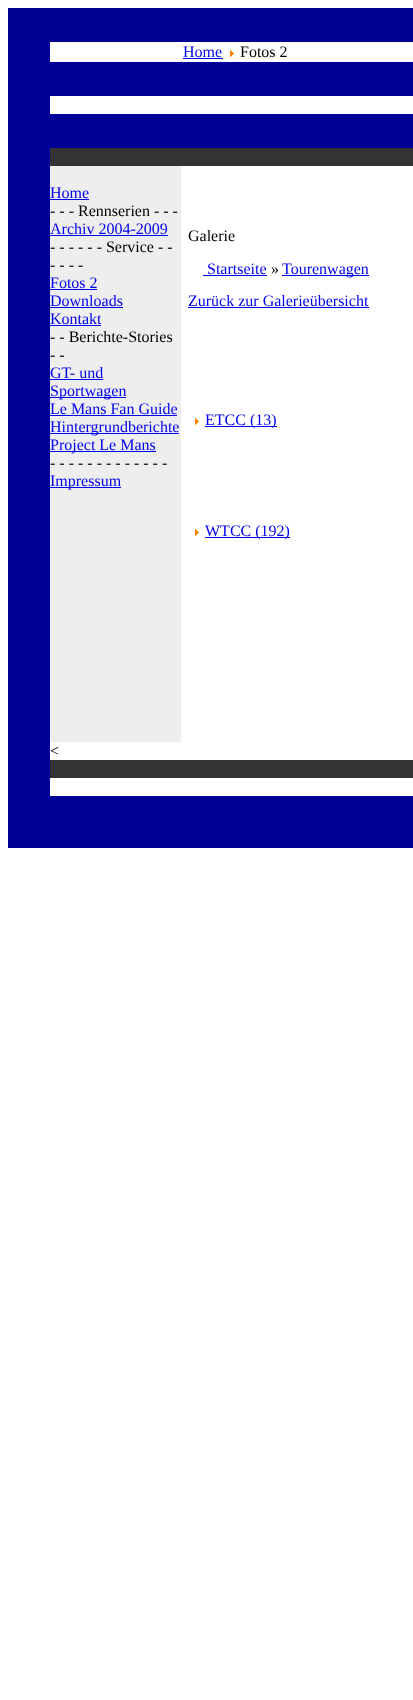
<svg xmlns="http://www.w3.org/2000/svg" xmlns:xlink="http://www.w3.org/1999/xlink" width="413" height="1700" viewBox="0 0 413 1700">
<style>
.cls-1{font:16px Liberation Serif;fill:#0000ee}
.cls-2{font:16px Liberation Serif;fill:#000000}
</style>
<rect width="100%" height="100%" fill="#ffffff"/>
<rect fill="#000090" x="8" y="8" width="405" height="34"/>
<rect fill="#000099" x="8" y="42" width="42" height="806"/>
<rect fill="#0000ee" x="183" y="58" width="40" height="1"/>
<image xlink:href="image0.png" x="230" y="50" width="4" height="7"/>
<rect fill="#000099" x="50" y="62" width="363" height="34"/>
<rect fill="#000099" x="50" y="114" width="363" height="34"/>
<rect fill="#333333" x="50" y="148" width="363" height="18"/>
<rect fill="#eeeeee" x="50" y="166" width="131" height="576"/>
<rect fill="#0000ee" x="50" y="199" width="39" height="1"/>
<rect fill="#0000ee" x="50" y="235" width="118" height="1"/>
<rect fill="#0000ee" x="50" y="289" width="47" height="1"/>
<rect fill="#0000ee" x="50" y="307" width="73" height="1"/>
<rect fill="#0000ee" x="50" y="325" width="51" height="1"/>
<rect fill="#0000ee" x="50" y="379" width="53" height="1"/>
<rect fill="#0000ee" x="50" y="397" width="76" height="1"/>
<rect fill="#0000ee" x="50" y="415" width="127" height="1"/>
<rect fill="#0000ee" x="50" y="433" width="129" height="1"/>
<rect fill="#0000ee" x="50" y="451" width="106" height="1"/>
<rect fill="#0000ee" x="50" y="487" width="71" height="1"/>
<rect fill="#0000ee" x="282" y="275" width="87" height="1"/>
<rect fill="#0000ee" x="203" y="275" width="64" height="1"/>
<rect fill="#0000ee" x="188" y="307" width="181" height="1"/>
<image xlink:href="image0.png" x="195" y="418" width="4" height="7"/>
<rect fill="#0000ee" x="205" y="426" width="72" height="1"/>
<image xlink:href="image0.png" x="195" y="529" width="4" height="7"/>
<rect fill="#0000ee" x="205" y="537" width="85" height="1"/>
<rect fill="#333333" x="50" y="760" width="363" height="18"/>
<rect fill="#000099" x="50" y="796" width="363" height="52"/>
<text class="cls-1" x="183" y="57">Home</text>
<text class="cls-2" x="240" y="57">Fotos 2</text>
<text class="cls-1" x="50" y="198">Home</text>
<text class="cls-2" x="50" y="216">- - - Rennserien - - -</text>
<text class="cls-1" x="50" y="234">Archiv 2004-2009</text>
<text class="cls-2"><tspan x="50" y="252">- - - - - - Service - -</tspan><tspan x="50" y="270">- - - -</tspan></text>
<text class="cls-1"><tspan x="50" y="288">Fotos 2</tspan><tspan x="50" y="306">Downloads</tspan><tspan x="50" y="324">Kontakt</tspan></text>
<text class="cls-2"><tspan x="50" y="342">- - Berichte-Stories</tspan><tspan x="50" y="360">- -</tspan></text>
<text class="cls-1"><tspan x="50" y="378">GT- und</tspan><tspan x="50" y="396">Sportwagen</tspan><tspan x="50" y="414">Le Mans Fan Guide</tspan><tspan x="50" y="432">Hintergrundberichte</tspan><tspan x="50" y="450">Project Le Mans</tspan></text>
<text class="cls-2" x="50" y="468">- - - - - - - - - - - - -</text>
<text class="cls-1" x="50" y="486">Impressum</text>
<text class="cls-2" x="188" y="241">Galerie</text>
<text class="cls-1" x="207" y="274">Startseite</text>
<text class="cls-2" x="271" y="274">»</text>
<text class="cls-1" x="282" y="274">Tourenwagen</text>
<text class="cls-1" x="188" y="306">Zurück zur Galerieübersicht</text>
<text class="cls-1" x="205" y="425">ETCC (13)</text>
<text class="cls-1" x="205" y="536">WTCC (192)</text>
<text class="cls-2" x="50" y="756">&lt;</text>
</svg>
